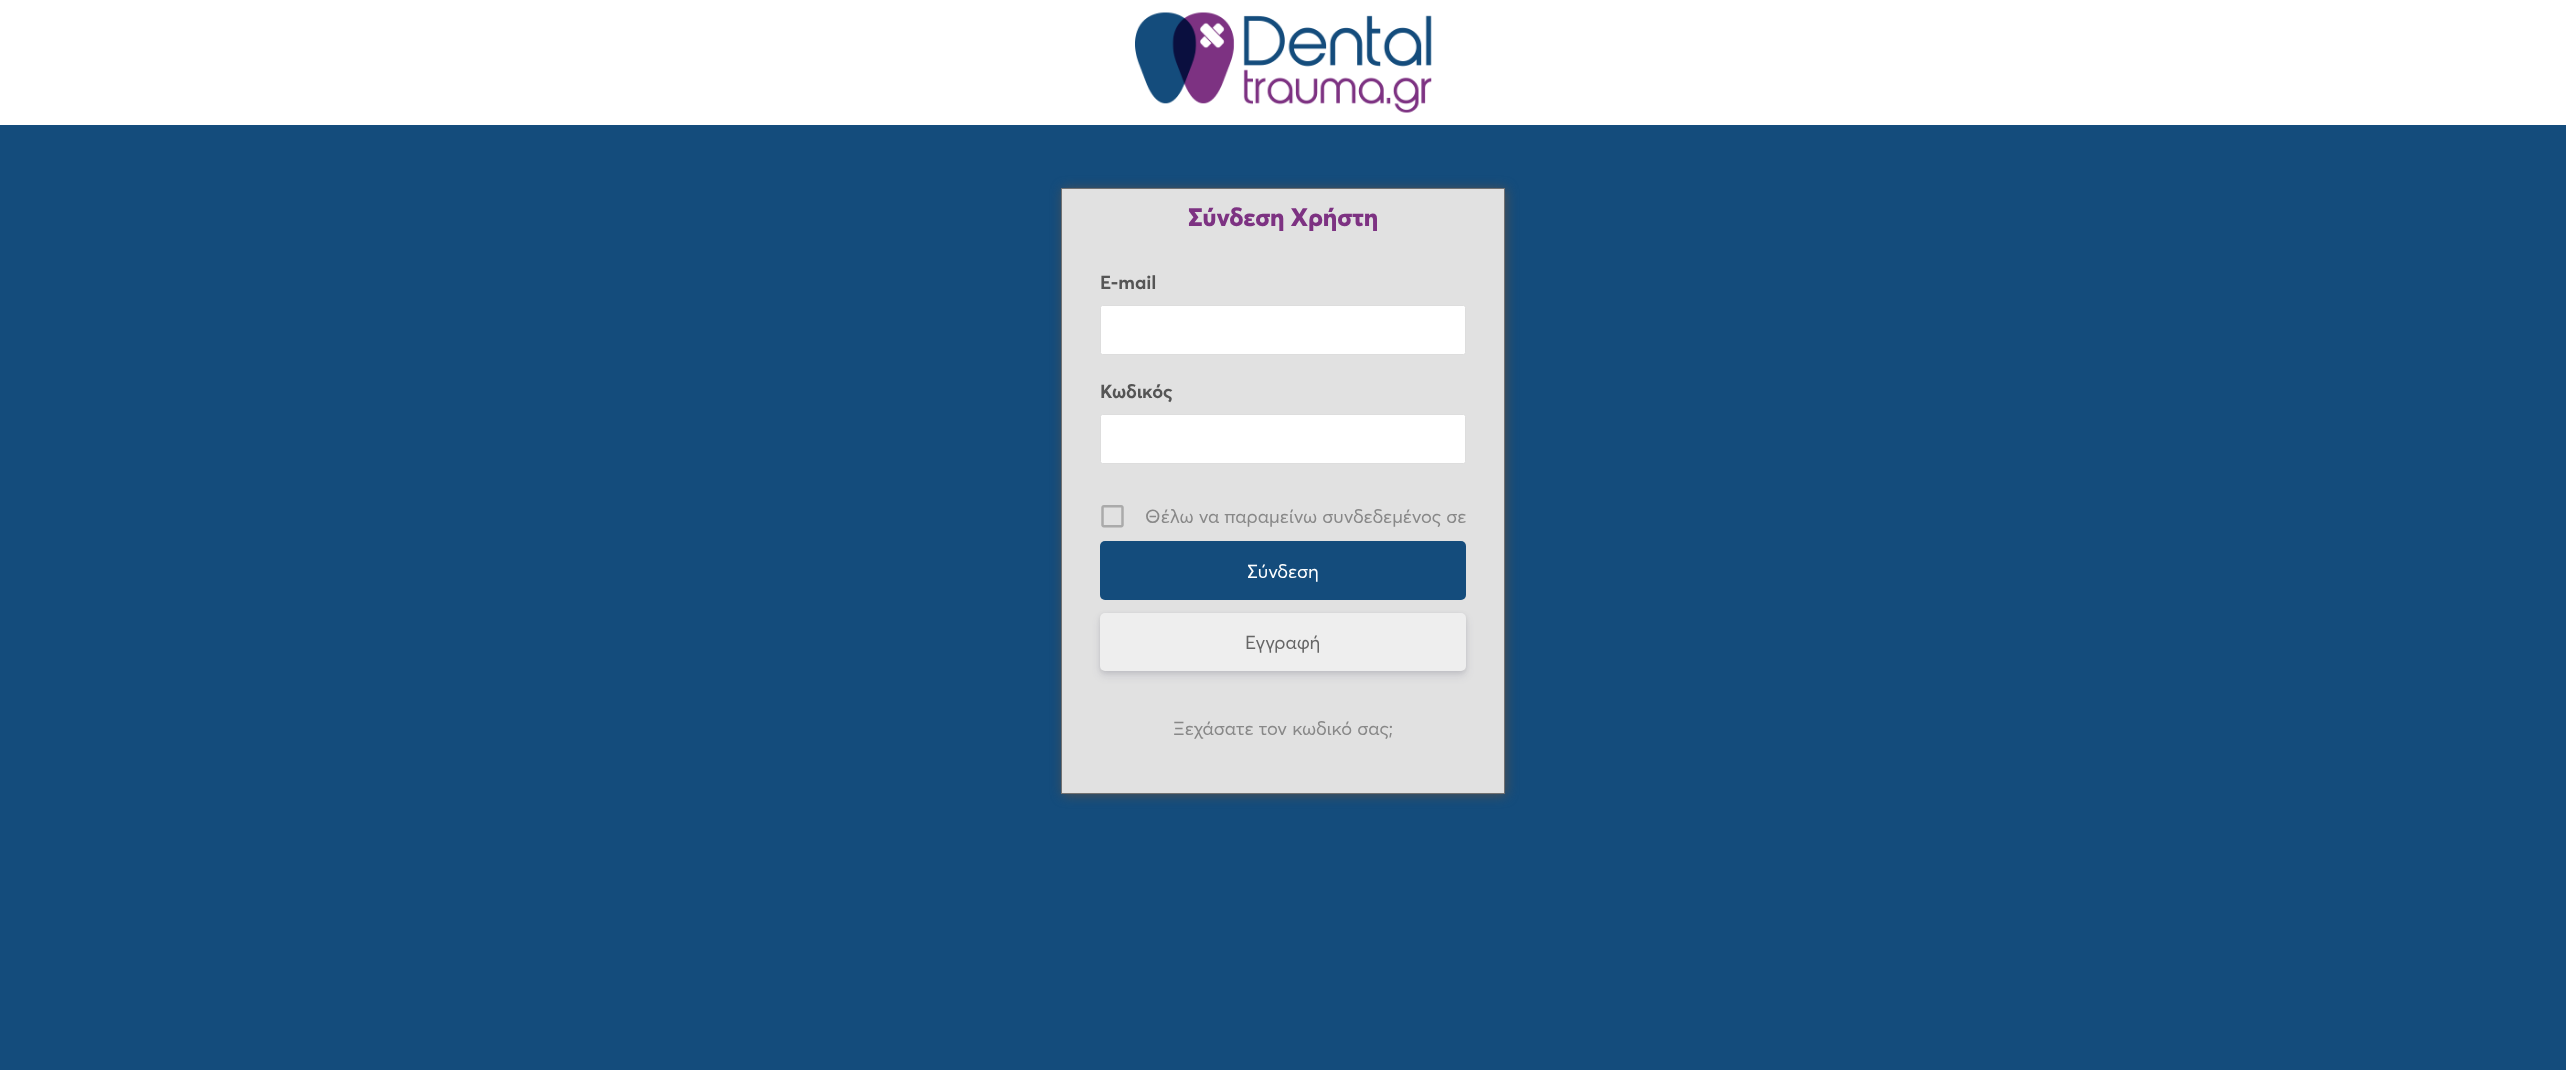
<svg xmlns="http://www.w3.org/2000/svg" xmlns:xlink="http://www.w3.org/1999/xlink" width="2566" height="1070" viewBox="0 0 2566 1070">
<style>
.cls-1{font:800 25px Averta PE;fill:#7d3282}
.cls-2{font:bold 18.75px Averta;fill:#555555}
.cls-3{font:18.75px Averta;fill:#888888}
.cls-4{font:18.75px Averta;fill:#ffffff}
.cls-5{font:18.75px Averta;fill:#666666}
</style>
<rect width="100%" height="100%" fill="#144c7c"/>
<rect fill="#ffffff" x="0" y="0" width="2566" height="125"/>
<image xlink:href="image0.png" x="1135" y="12" width="297" height="101"/>
<rect fill="#505050" filter="blur(6px)" x="1063" y="189" width="443" height="606"/>
<rect fill="#e1e1e1" stroke="#727272" x="1061.5" y="188.5" width="443" height="605"/>
<rect fill="#ffffff" stroke="#dddddd" x="1100.5" y="305.5" width="365" height="49" rx="2"/>
<rect fill="#ffffff" stroke="#dddddd" x="1100.5" y="414.5" width="365" height="49" rx="2"/>
<image xlink:href="image1.png" x="1101" y="505" width="23" height="23"/>
<rect fill="#144c7c" x="1100" y="541" width="366" height="59" rx="5"/>
<rect fill="#000000" fill-opacity="0.08" filter="blur(2px)" x="1100" y="614" width="366" height="59" rx="5"/>
<rect fill="#32325d" fill-opacity="0.11" filter="blur(4px)" x="1100" y="618" width="366" height="58" rx="5"/>
<rect fill="#eeeeee" x="1100" y="613" width="366" height="58" rx="5"/>
<text class="cls-1" x="1188" y="226">Σύνδεση Χρήστη</text>
<text class="cls-2" x="1100" y="289">E-mail</text>
<text class="cls-2" x="1100" y="398">Κωδικός</text>
<text class="cls-3" x="1145" y="523">Θέλω να παραμείνω συνδεδεμένος σε</text>
<text class="cls-4" x="1247" y="578">Σύνδεση</text>
<text class="cls-5" x="1245" y="649">Εγγραφή</text>
<text class="cls-3" x="1173" y="735">Ξεχάσατε τον κωδικό σας;</text>
</svg>
